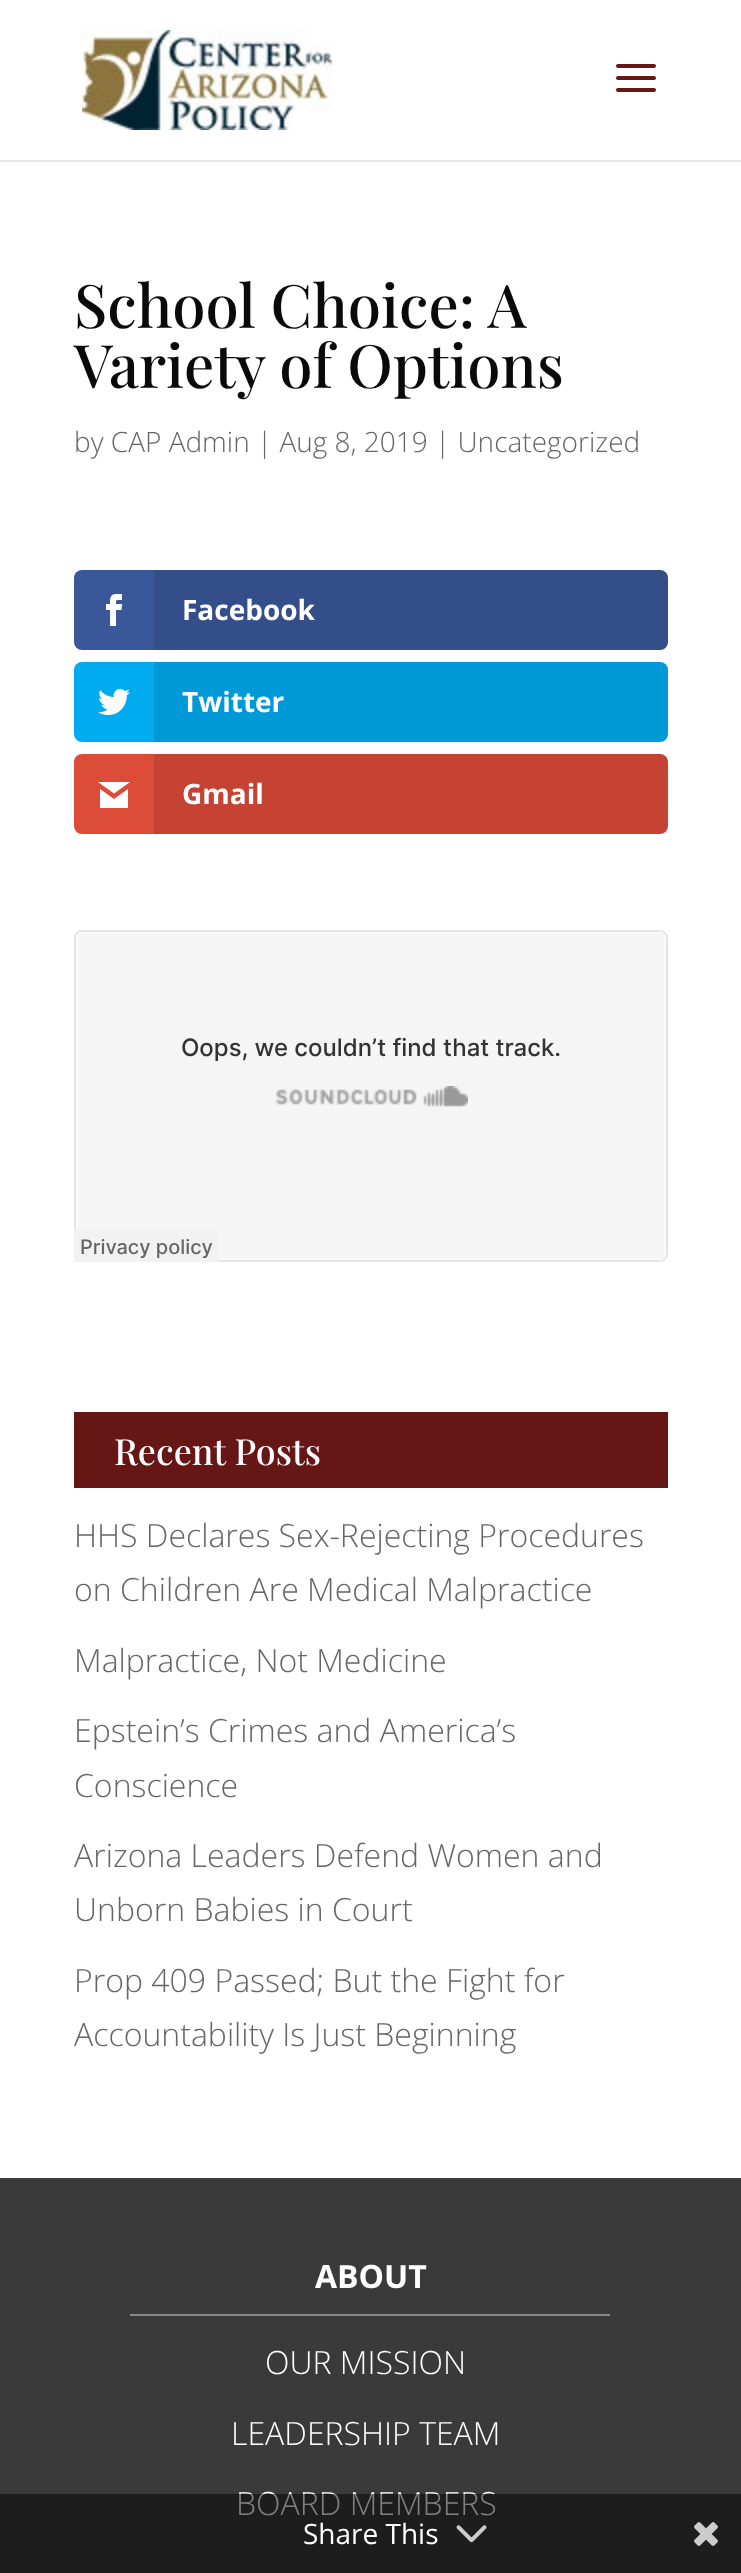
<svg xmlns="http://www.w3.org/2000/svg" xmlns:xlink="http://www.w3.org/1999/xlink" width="741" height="2573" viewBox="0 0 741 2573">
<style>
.cls-1{font:500 60px Playfair Display;fill:#0a0a0a}
.cls-2{font:300 28px Open Sans;fill:#666666}
.cls-3{font:bold 28px Open Sans;fill:#ffffff}
.cls-4{font:500 36px Playfair Display;fill:#ffffff}
.cls-5{font:300 32px Open Sans;fill:#666666}
.cls-6{font:bold 32px Open Sans;fill:#ffffff}
.cls-7{font:300 32px Open Sans;fill:#ffffff}
.cls-8{font:28px Open Sans;fill:#ffffff}
</style>
<rect width="100%" height="100%" fill="#ffffff"/>
<rect fill="#e6e6e6" x="0" y="160" width="741" height="2"/>
<image xlink:href="image0.png" x="82" y="30" width="250" height="100"/>
<image xlink:href="image1.png" x="616" y="64" width="40" height="28"/>
<rect fill="#3a579a" x="74" y="570" width="594" height="80" rx="8"/>
<image xlink:href="image2.png" x="106" y="594" width="17" height="32"/>
<path fill="#000000" fill-opacity="0.1" d="M154 570H660C664.5 570 668 573.5 668 578V642C668 646.5 664.5 650 660 650H154Z"/>
<rect fill="#00abf0" x="74" y="662" width="594" height="80" rx="8"/>
<image xlink:href="image3.png" x="98" y="689" width="32" height="26"/>
<path fill="#000000" fill-opacity="0.1" d="M154 662H660C664.5 662 668 665.5 668 670V734C668 738.5 664.5 742 660 742H154Z"/>
<rect fill="#dd4b39" x="74" y="754" width="594" height="80" rx="8"/>
<path fill="#ffffff" d="M130 782H98L114 793.5ZM114 799L100 789V808H128V789Z"/>
<path fill="#000000" fill-opacity="0.1" d="M154 754H660C664.5 754 668 757.5 668 762V826C668 830.5 664.5 834 660 834H154Z"/>
<image xlink:href="image4.png" x="74" y="930" width="594" height="332"/>
<rect fill="#671616" x="74" y="1412" width="594" height="76"/>
<rect fill="#3a3a3a" x="0" y="2178" width="741" height="395"/>
<rect fill="#898989" x="130" y="2314" width="480" height="2"/>
<text class="cls-1"><tspan x="74" y="328">School Choice: A</tspan><tspan x="74" y="388">Variety of Options</tspan></text>
<text class="cls-2" x="74" y="452">by CAP Admin | Aug 8, 2019 | Uncategorized</text>
<text class="cls-3" x="182" y="620">Facebook</text>
<text class="cls-3" x="182" y="712">Twitter</text>
<text class="cls-3" x="182" y="804">Gmail</text>
<text class="cls-4" x="114" y="1465">Recent Posts</text>
<text class="cls-5"><tspan x="74" y="1547">HHS Declares Sex-Rejecting Procedures</tspan><tspan x="74" y="1601">on Children Are Medical Malpractice</tspan></text>
<text class="cls-5" x="74" y="1672">Malpractice, Not Medicine</text>
<text class="cls-5"><tspan x="74" y="1742">Epstein’s Crimes and America’s</tspan><tspan x="74" y="1797">Conscience</tspan></text>
<text class="cls-5"><tspan x="74" y="1867">Arizona Leaders Defend Women and</tspan><tspan x="74" y="1921">Unborn Babies in Court</tspan></text>
<text class="cls-5"><tspan x="74" y="1992">Prop 409 Passed; But the Fight for</tspan><tspan x="74" y="2046">Accountability Is Just Beginning</tspan></text>
<text class="cls-6" x="315" y="2288">ABOUT</text>
<text class="cls-7" x="265" y="2374">OUR MISSION</text>
<text class="cls-7" x="231" y="2445">LEADERSHIP TEAM</text>
<text class="cls-7" x="236" y="2515">BOARD MEMBERS</text>
<rect fill="#000000" fill-opacity="0.5" x="0" y="2494" width="741" height="79"/>
<text class="cls-8" x="303" y="2544">Share This</text>
<image xlink:href="image5.png" x="456" y="2525" width="31" height="18"/>
<image xlink:href="image6.png" x="694" y="2522" width="24" height="24"/>
</svg>
